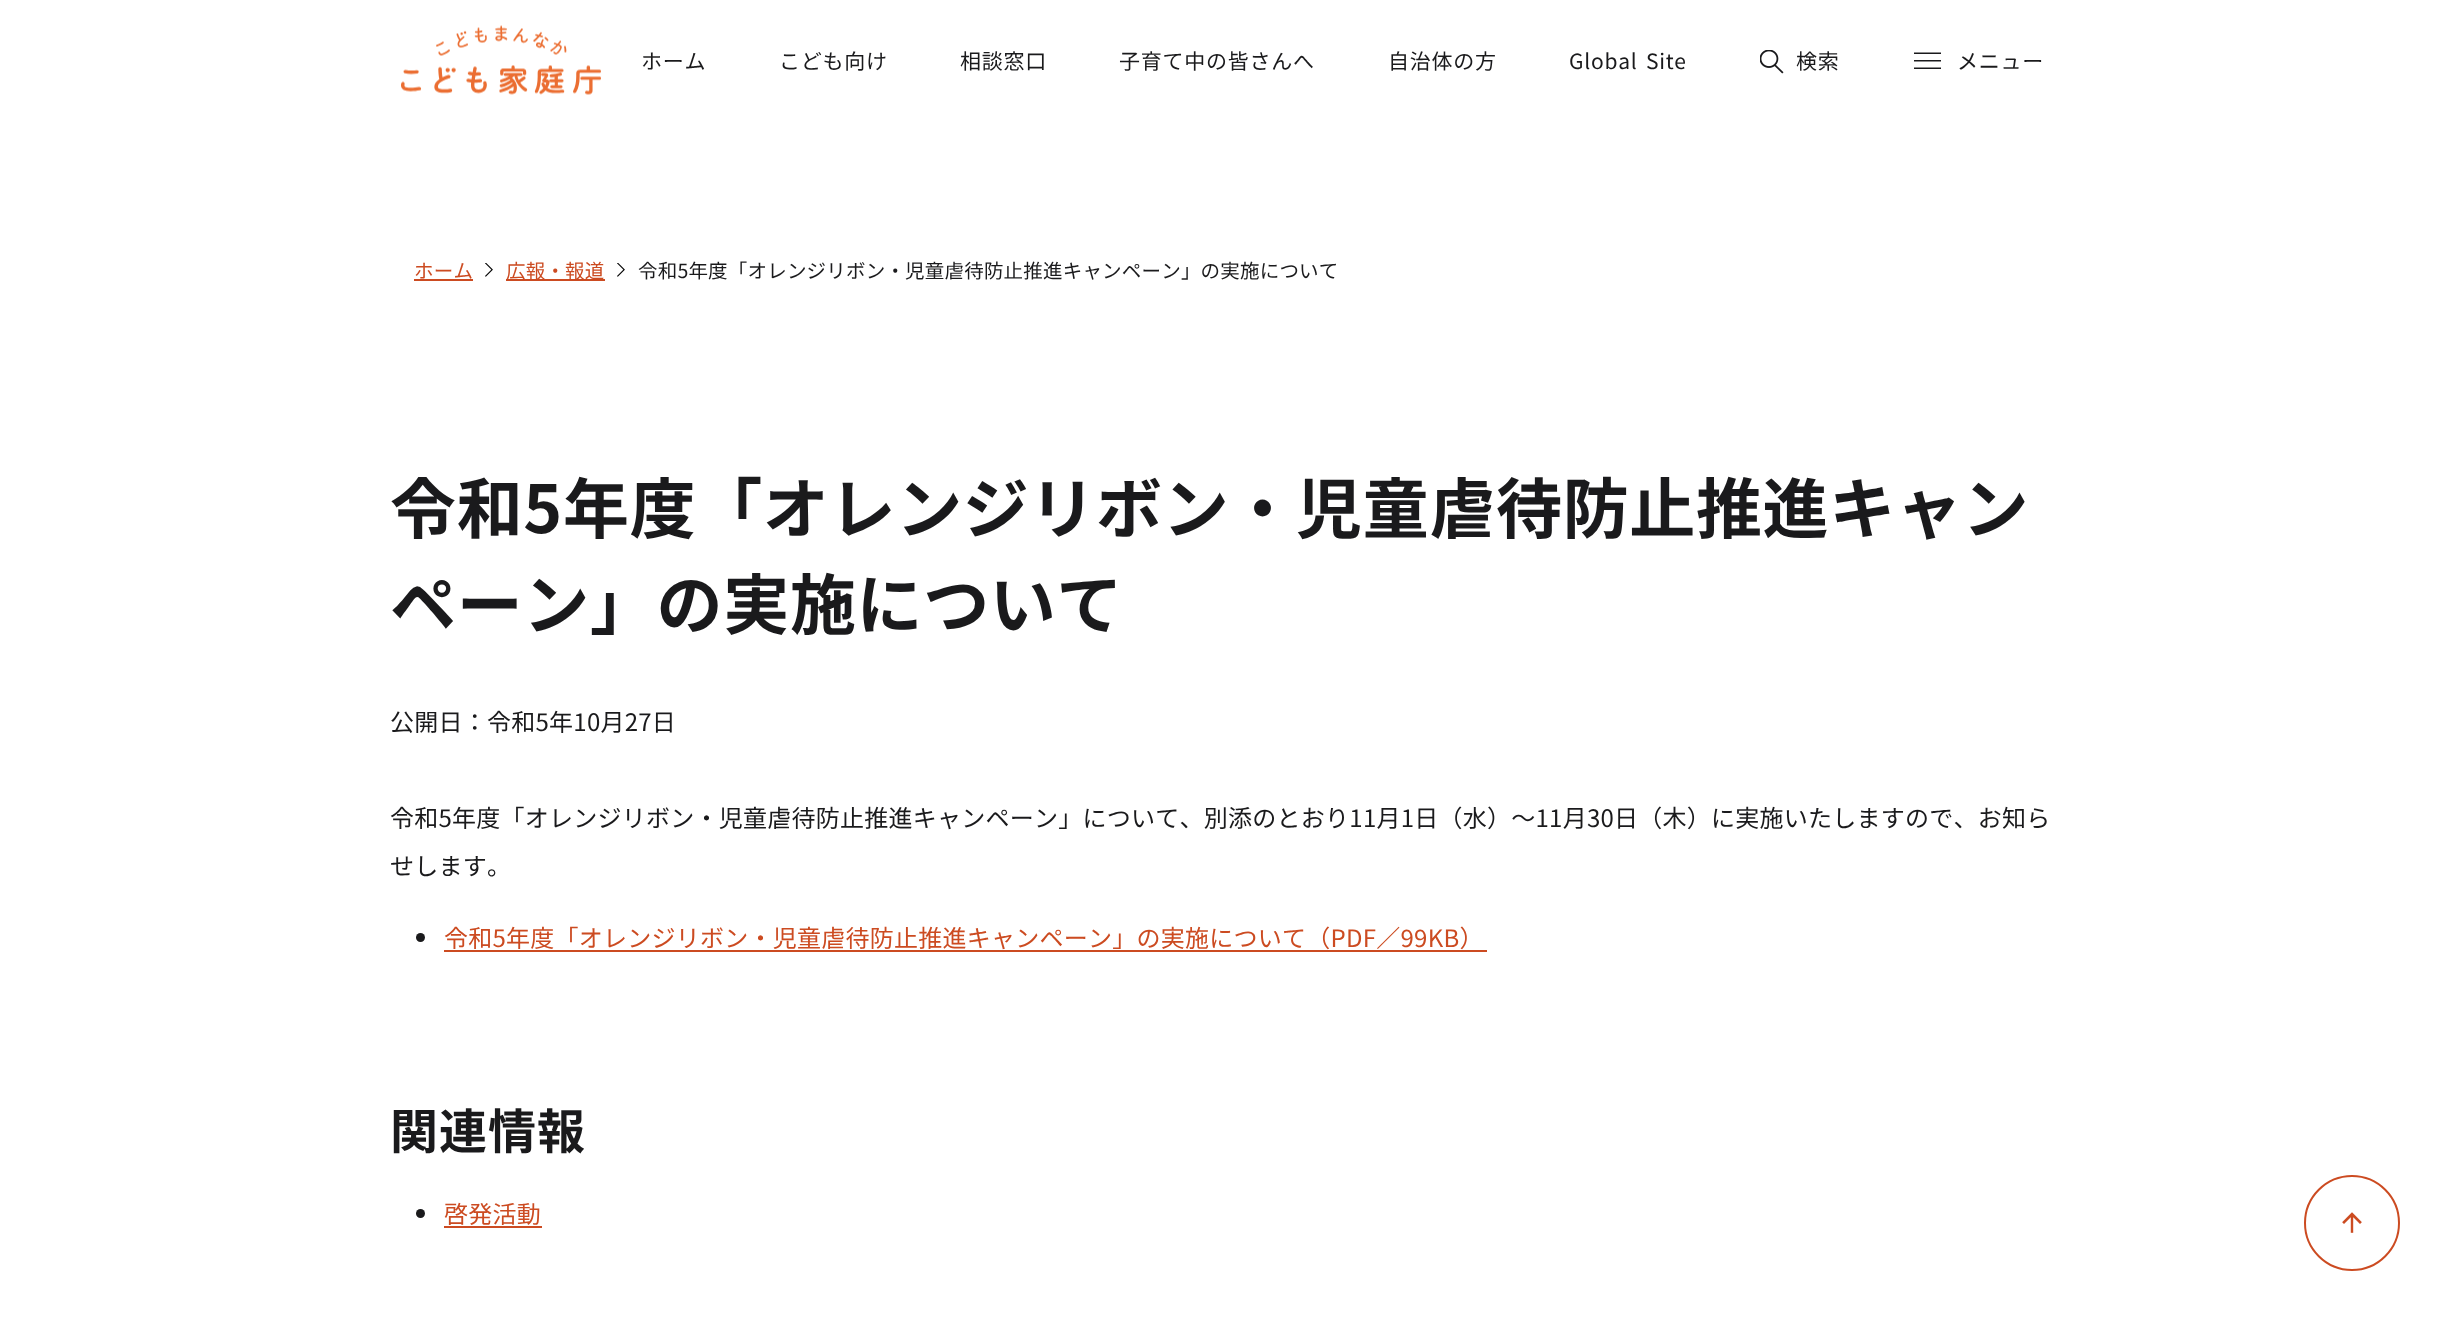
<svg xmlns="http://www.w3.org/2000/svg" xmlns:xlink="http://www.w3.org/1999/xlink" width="2459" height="1330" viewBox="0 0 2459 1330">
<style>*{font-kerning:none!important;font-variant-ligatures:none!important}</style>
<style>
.cls-1{font:21px Noto Sans JP;letter-spacing:0.75px;fill:#1a1a1c}
.cls-2{font:19.5px Noto Sans JP;letter-spacing:0.2px;fill:#cc4b21}
.cls-3{font:19.5px Noto Sans JP;letter-spacing:0.2px;fill:#1a1a1c}
.cls-4{font:bold 66px Noto Sans JP;letter-spacing:0.65px;fill:#1a1a1c}
.cls-5{font:24px Noto Sans JP;letter-spacing:0.25px;fill:#1a1a1c}
.cls-6{font:24px Noto Sans JP;letter-spacing:0.25px;fill:#cc4b21}
.cls-7{font:bold 48px Noto Sans JP;letter-spacing:1px;fill:#1a1a1c}
</style>
<rect width="100%" height="100%" fill="#ffffff"/>
<image xlink:href="image0.png" x="401" y="25" width="200" height="70"/>
<image xlink:href="image1.png" x="1760" y="50" width="24" height="24"/>
<image xlink:href="image2.png" x="1914" y="52" width="27" height="17"/>
<rect fill="#cc4b21" x="414" y="279" width="59" height="2"/>
<image xlink:href="image3.png" x="485" y="263" width="8" height="14"/>
<rect fill="#cc4b21" x="506" y="279" width="99" height="2"/>
<image xlink:href="image3.png" x="617" y="263" width="8" height="14"/>
<circle fill="#1a1a1c" cx="420.5" cy="937.5" r="4.5"/>
<rect fill="#cc4b21" x="444" y="950" width="1043" height="2"/>
<circle fill="#1a1a1c" cx="420.5" cy="1213.5" r="4.5"/>
<rect fill="#cc4b21" x="444" y="1226" width="98" height="2"/>
<circle fill="none" stroke="#cc4b21" stroke-width="2" cx="2352" cy="1223" r="47"/>
<image xlink:href="image4.png" x="2342" y="1212" width="20" height="21"/>
<text class="cls-1" x="641" y="69">ホーム</text>
<text class="cls-1" x="779" y="69">こども向け</text>
<text class="cls-1" x="960" y="69">相談窓口</text>
<text class="cls-1" x="1119" y="69">子育て中の皆さんへ</text>
<text class="cls-1" x="1388" y="69">自治体の方</text>
<text class="cls-1" x="1569" y="69" word-spacing="3">Global Site</text>
<text class="cls-1" x="1796" y="69">検索</text>
<text class="cls-1" x="1957" y="69">メニュー</text>
<text class="cls-2" x="414" y="278">ホーム</text>
<text class="cls-2" x="506" y="278">広報・報道</text>
<text class="cls-3" x="638" y="278">令和5年度「オレンジリボン・児童虐待防止推進キャンペーン」の実施について</text>
<text class="cls-4"><tspan x="390" y="533">令和5年度「オレンジリボン・児童虐待防止推進キャン</tspan><tspan x="390" y="629">ペーン」の実施について</tspan></text>
<text class="cls-5" x="390" y="731">公開日：令和5年10月27日</text>
<text class="cls-5" x="390" y="827">令和5年度「オレンジリボン・児童虐待防止推進キャンペーン」について、別添のとおり11月1日（水）～11月30日（木）に実施いたしますので、お知ら</text>
<text class="cls-5" x="390" y="875">せします。</text>
<text class="cls-6" x="444" y="947">令和5年度「オレンジリボン・児童虐待防止推進キャンペーン」の実施について（PDF／99KB）</text>
<text class="cls-7" x="390" y="1149">関連情報</text>
<text class="cls-6" x="444" y="1223">啓発活動</text>
</svg>
